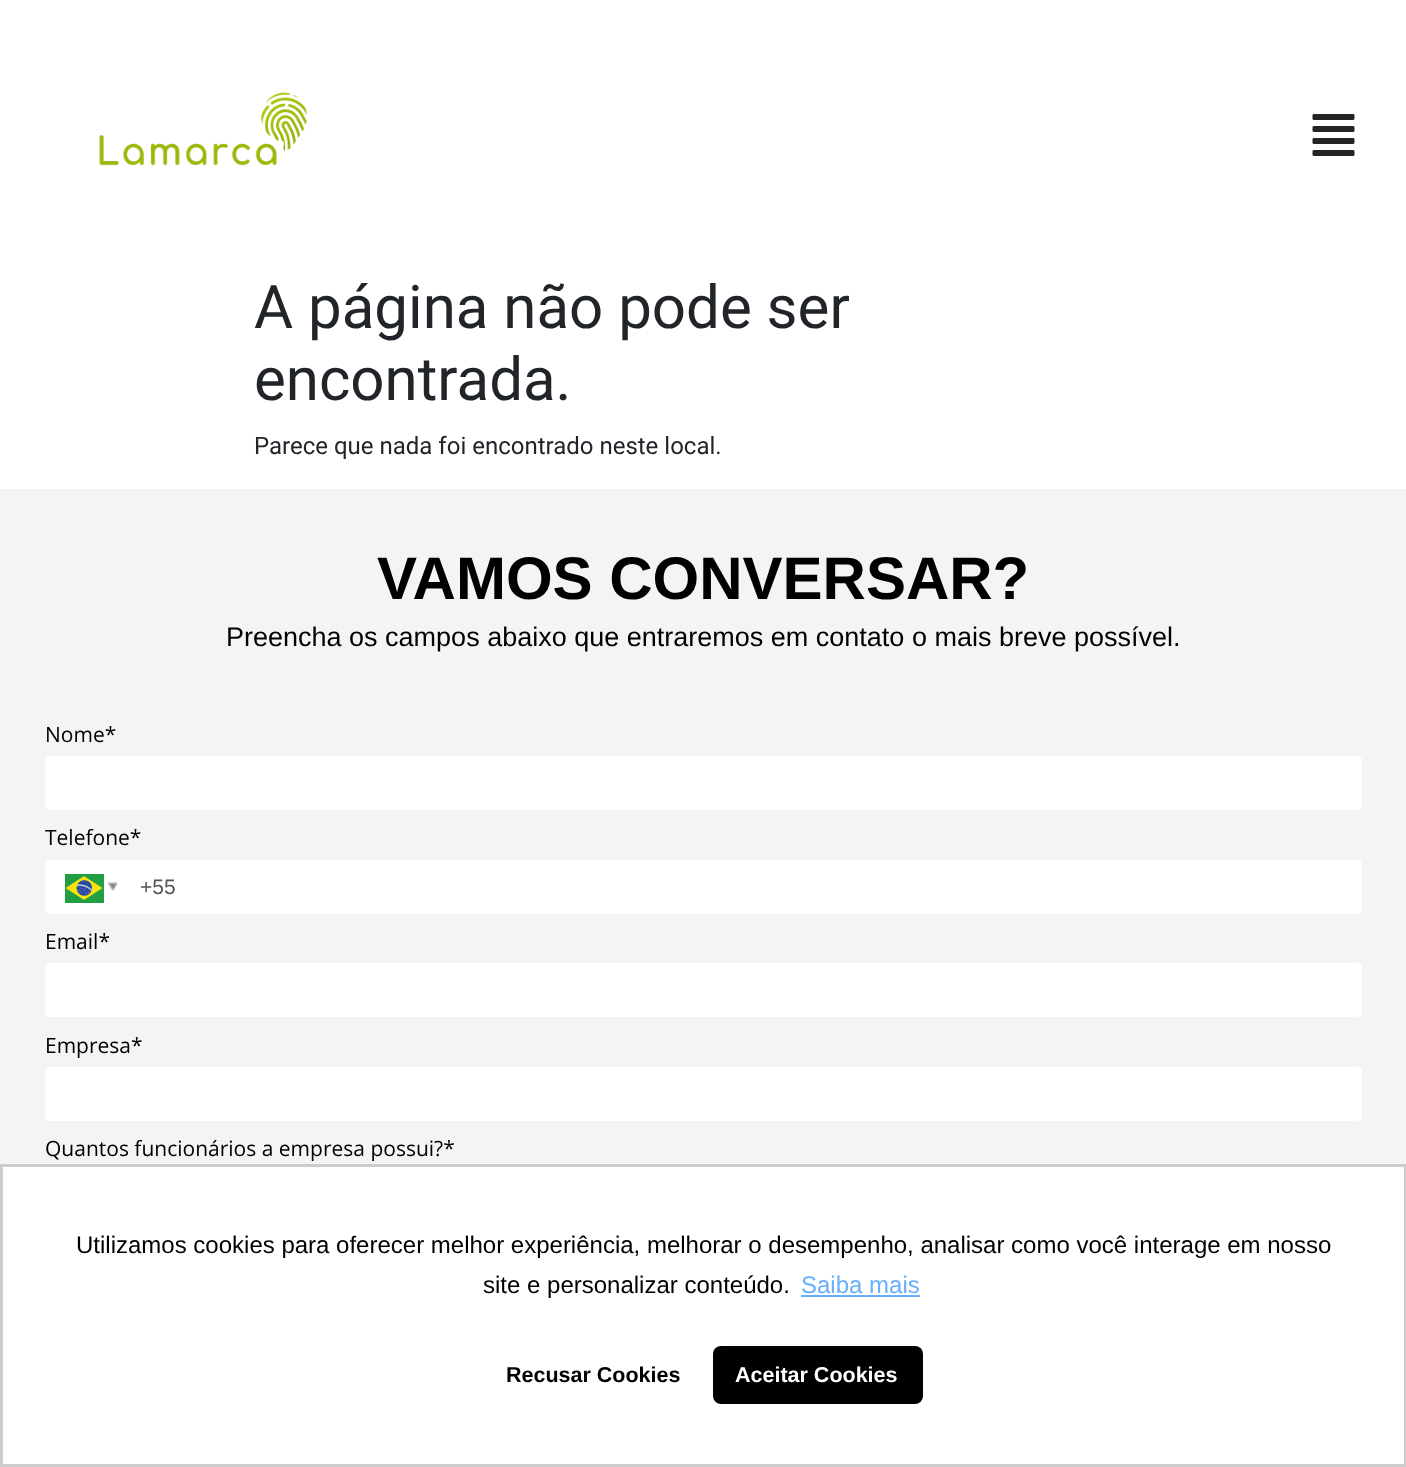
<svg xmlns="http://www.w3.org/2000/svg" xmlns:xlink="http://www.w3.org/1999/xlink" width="1406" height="1467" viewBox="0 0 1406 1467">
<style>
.cls-1{font:60px Roboto;fill:#212529}
.cls-2{font:24px Roboto;fill:#212529}
.cls-3{font:bold 60px Liberation Sans;fill:#000000}
.cls-4{font:27px Liberation Sans;fill:#000000}
.cls-5{font:21px Open Sans;fill:#000000}
.cls-6{font:21px Liberation Sans;fill:#555555}
.cls-7{font:24px Liberation Sans;fill:#000000}
.cls-8{font:24px Liberation Sans;fill:#66b0ff}
.cls-9{font:bold 21.5px Liberation Sans;fill:#000000}
.cls-10{font:bold 21.5px Liberation Sans;fill:#ffffff}
</style>
<rect width="100%" height="100%" fill="#ffffff"/>
<image xlink:href="image0.png" x="99" y="92" width="209" height="74"/>
<image xlink:href="image1.png" x="1312" y="114" width="43" height="42"/>
<rect fill="#f4f4f4" x="0" y="489" width="1406" height="675"/>
<rect fill="#ffffff" x="45" y="756" width="1317" height="54" rx="5"/>
<path fill="#ffffff" d="M51 860H128V914H51C47.5 914 45 911.5 45 908V866C45 862.5 47.5 860 51 860Z"/>
<image xlink:href="image2.png" x="65" y="874" width="39" height="29"/>
<image xlink:href="image3.png" x="107" y="881" width="11" height="11"/>
<path fill="#ffffff" d="M128 860H1357C1360 860 1362 862 1362 865V909C1362 912 1360 914 1357 914H128Z"/>
<rect fill="#ffffff" x="45" y="963" width="1317" height="54" rx="5"/>
<rect fill="#ffffff" x="45" y="1067" width="1317" height="54" rx="5"/>
<rect fill="none" stroke="#cccccc" stroke-width="3" x="1.5" y="1165.5" width="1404" height="300"/>
<rect fill="#66b0ff" x="801" y="1295" width="119" height="2"/>
<rect fill="#000000" x="713" y="1346" width="210" height="58" rx="8"/>
<text class="cls-1"><tspan x="254" y="328">A página não pode ser</tspan><tspan x="254" y="400">encontrada.</tspan></text>
<text class="cls-2" x="254" y="454">Parece que nada foi encontrado neste local.</text>
<text class="cls-3" x="377" y="599">VAMOS CONVERSAR?</text>
<text class="cls-4" x="226" y="646">Preencha os campos abaixo que entraremos em contato o mais breve possível.</text>
<text class="cls-5" x="45" y="742">Nome*</text>
<text class="cls-5" x="45" y="845">Telefone*</text>
<text class="cls-6" x="140" y="894">+55</text>
<text class="cls-5" x="45" y="949">Email*</text>
<text class="cls-5" x="45" y="1053">Empresa*</text>
<text class="cls-5" x="45" y="1156">Quantos funcionários a empresa possui?*</text>
<text class="cls-7" x="76" y="1253">Utilizamos cookies para oferecer melhor experiência, melhorar o desempenho, analisar como você interage em nosso</text>
<text class="cls-7" x="483" y="1293">site e personalizar conteúdo.</text>
<text class="cls-8" x="801" y="1293">Saiba mais</text>
<text class="cls-9" x="506" y="1382">Recusar Cookies</text>
<text class="cls-10" x="735" y="1382">Aceitar Cookies</text>
</svg>
